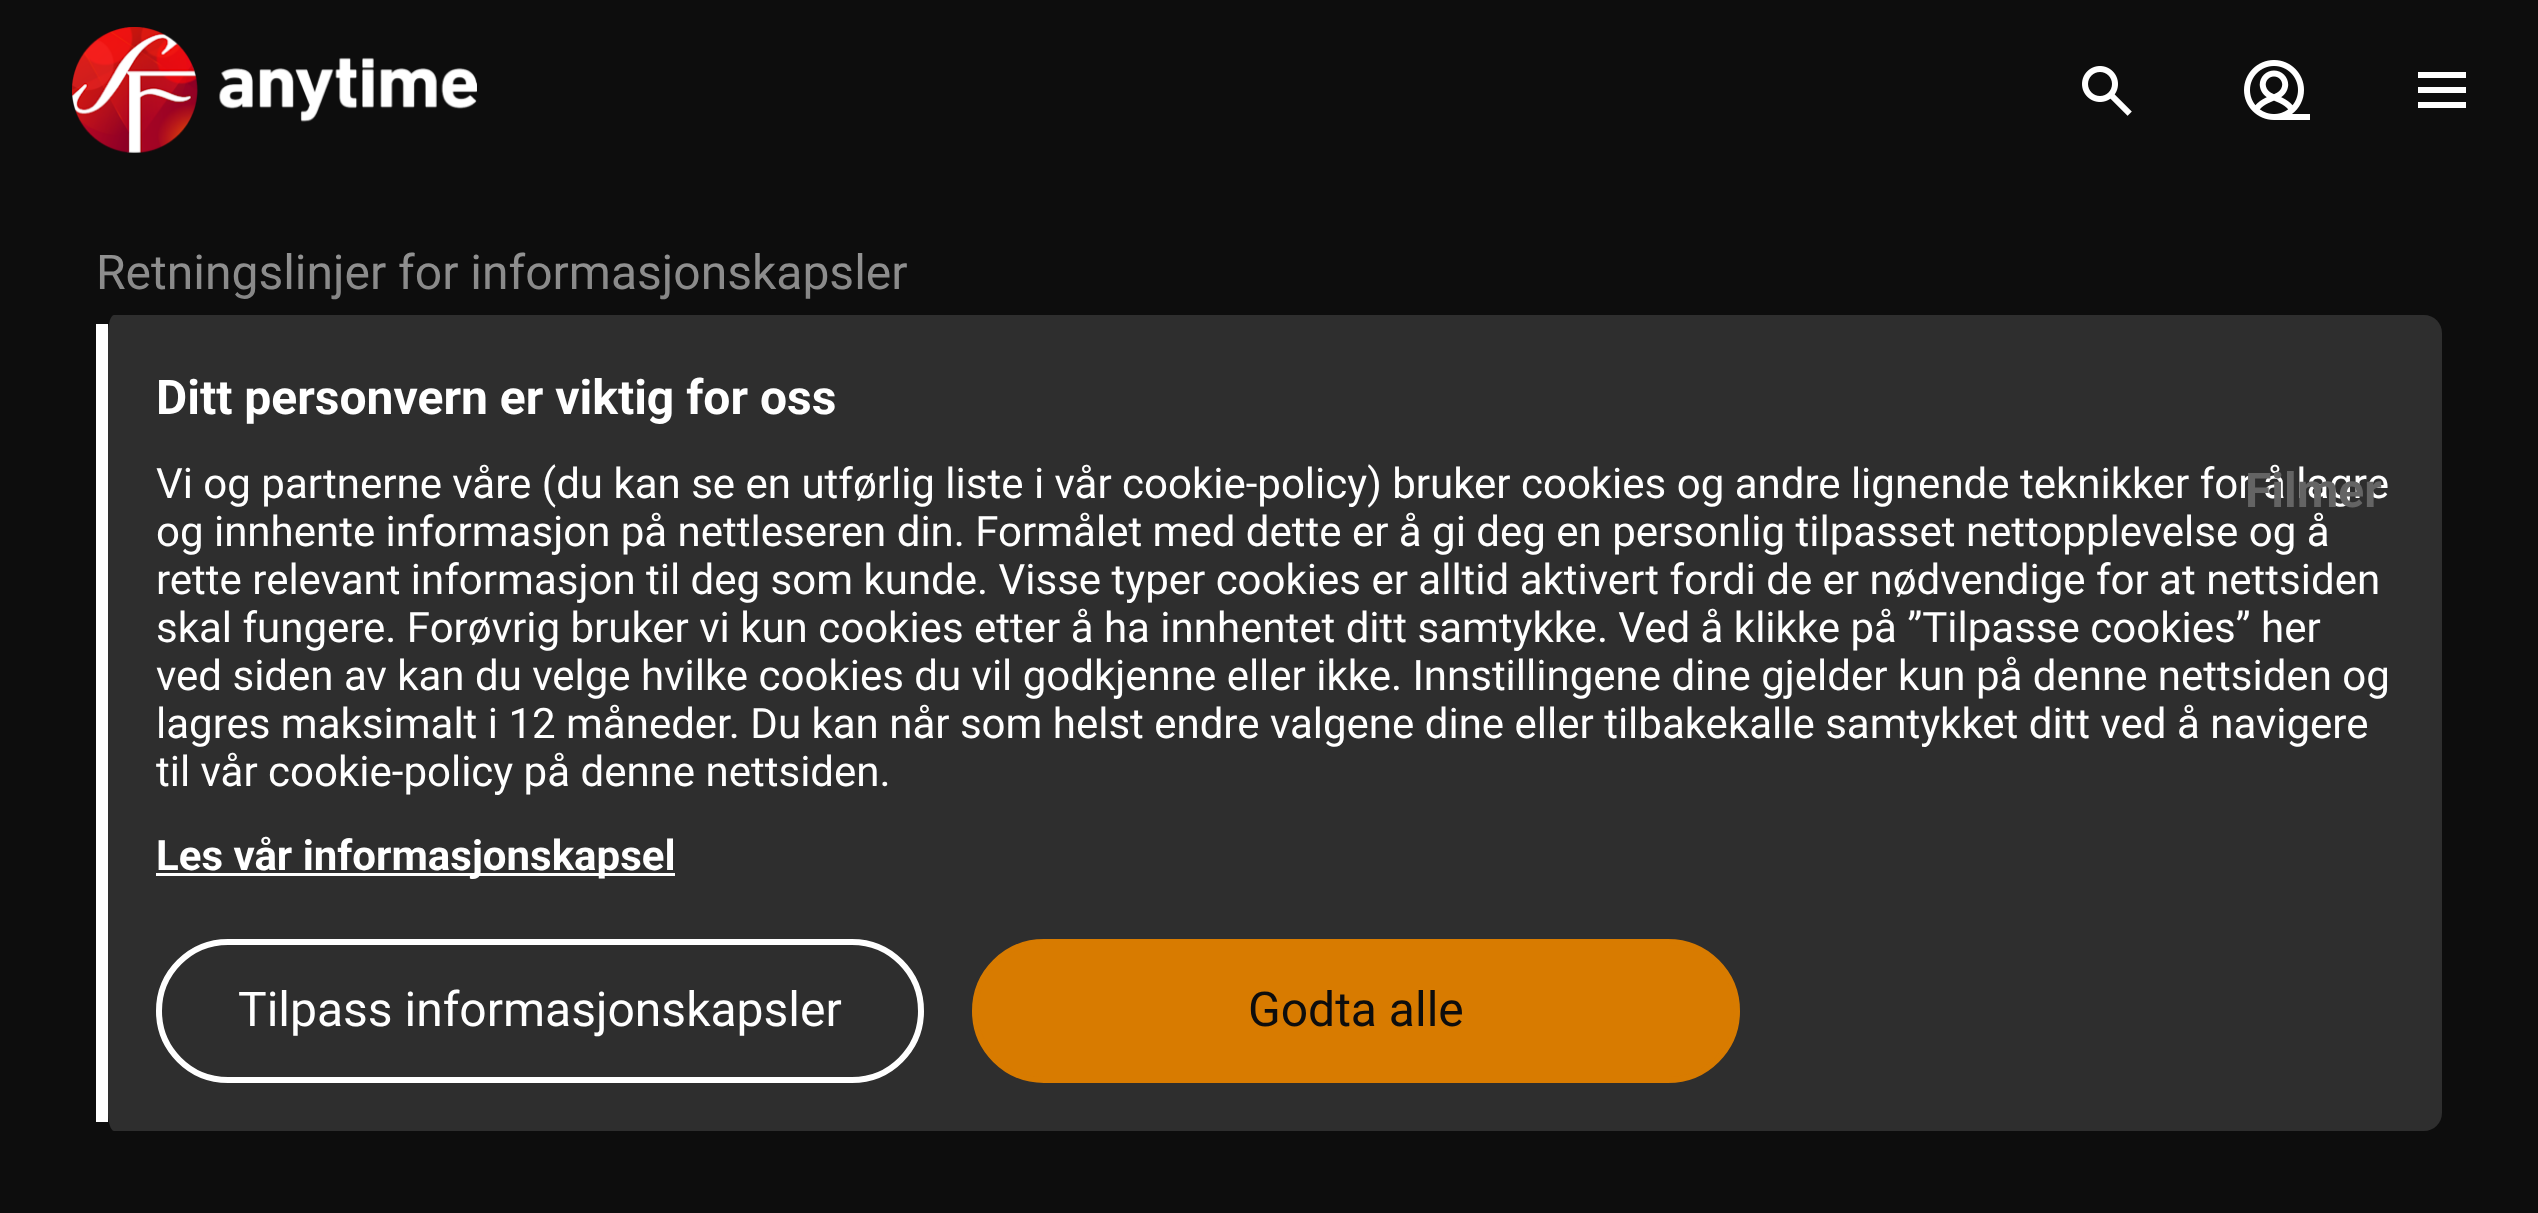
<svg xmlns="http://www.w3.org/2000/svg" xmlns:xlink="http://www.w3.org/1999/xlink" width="2538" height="1213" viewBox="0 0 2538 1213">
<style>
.cls-1{font:48px Roboto;fill:#9c9c9c}
.cls-2{font:bold 48px Roboto;fill:#ffffff}
.cls-3{font:42px Roboto;fill:#ffffff}
.cls-4{font:bold 42px Roboto;fill:#ffffff}
.cls-5{font:48px Roboto;fill:#ffffff}
.cls-6{font:48px Roboto;fill:#0d0d0d}
.cls-7{font:bold 48px Roboto;fill:#646464}
</style>
<defs>
<linearGradient id="g1" gradientUnits="userSpaceOnUse" x1="1269" y1="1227" x2="1269" y2="219"><stop offset="0" stop-color="#0d0d0d"/><stop offset="0.5" stop-color="#0d0d0d"/><stop offset="1" stop-color="#0d0d0d" stop-opacity="0"/></linearGradient>
</defs>
<rect width="100%" height="100%" fill="#0d0d0d"/>
<image xlink:href="image0.png" x="72" y="27" width="405" height="126"/>
<image xlink:href="image1.png" x="2082" y="66" width="50" height="50"/>
<image xlink:href="image2.png" x="2244" y="60" width="66" height="60"/>
<rect fill="#ffffff" x="2418" y="102" width="48" height="6"/>
<rect fill="#ffffff" x="2418" y="72" width="48" height="6"/>
<rect fill="#ffffff" x="2418" y="87" width="48" height="6"/>
<path fill="#2e2e2e" d="M114 315H2424C2434 315 2442 323 2442 333V1113C2442 1123 2434 1131 2424 1131H114C111 1131 108 1123 108 1113V333C108 323 111 315 114 315Z"/>
<rect fill="#ffffff" x="96" y="324" width="12" height="798"/>
<rect fill="#ffffff" x="156" y="873" width="519" height="3"/>
<rect fill="none" stroke="#ffffff" stroke-width="6" x="159" y="942" width="762" height="138" rx="69"/>
<rect fill="#d87b00" stroke="#d87b00" stroke-width="6" x="975" y="942" width="762" height="138" rx="69"/>
<text class="cls-1" x="96" y="289">Retningslinjer for informasjonskapsler</text>
<rect fill="url(#g1)" x="100" y="252" width="807" height="48"/>
<text class="cls-2" x="156" y="414">Ditt personvern er viktig for oss</text>
<text class="cls-3"><tspan x="156" y="498">Vi og partnerne våre (du kan se en utførlig liste i vår cookie-policy) bruker cookies og andre lignende teknikker for å lagre</tspan><tspan x="156" y="546">og innhente informasjon på nettleseren din. Formålet med dette er å gi deg en personlig tilpasset nettopplevelse og å</tspan><tspan x="156" y="594">rette relevant informasjon til deg som kunde. Visse typer cookies er alltid aktivert fordi de er nødvendige for at nettsiden</tspan><tspan x="156" y="642">skal fungere. Forøvrig bruker vi kun cookies etter å ha innhentet ditt samtykke. Ved å klikke på ”Tilpasse cookies” her</tspan><tspan x="156" y="690">ved siden av kan du velge hvilke cookies du vil godkjenne eller ikke. Innstillingene dine gjelder kun på denne nettsiden og</tspan><tspan x="156" y="738">lagres maksimalt i 12 måneder. Du kan når som helst endre valgene dine eller tilbakekalle samtykket ditt ved å navigere</tspan><tspan x="156" y="786">til vår cookie-policy på denne nettsiden.</tspan></text>
<text class="cls-4" x="156" y="870">Les vår informasjonskapsel</text>
<text class="cls-5" x="238" y="1026">Tilpass informasjonskapsler</text>
<text class="cls-6" x="1248" y="1026">Godta alle</text>
<text class="cls-7" x="2245" y="507">Filmer</text>
</svg>
